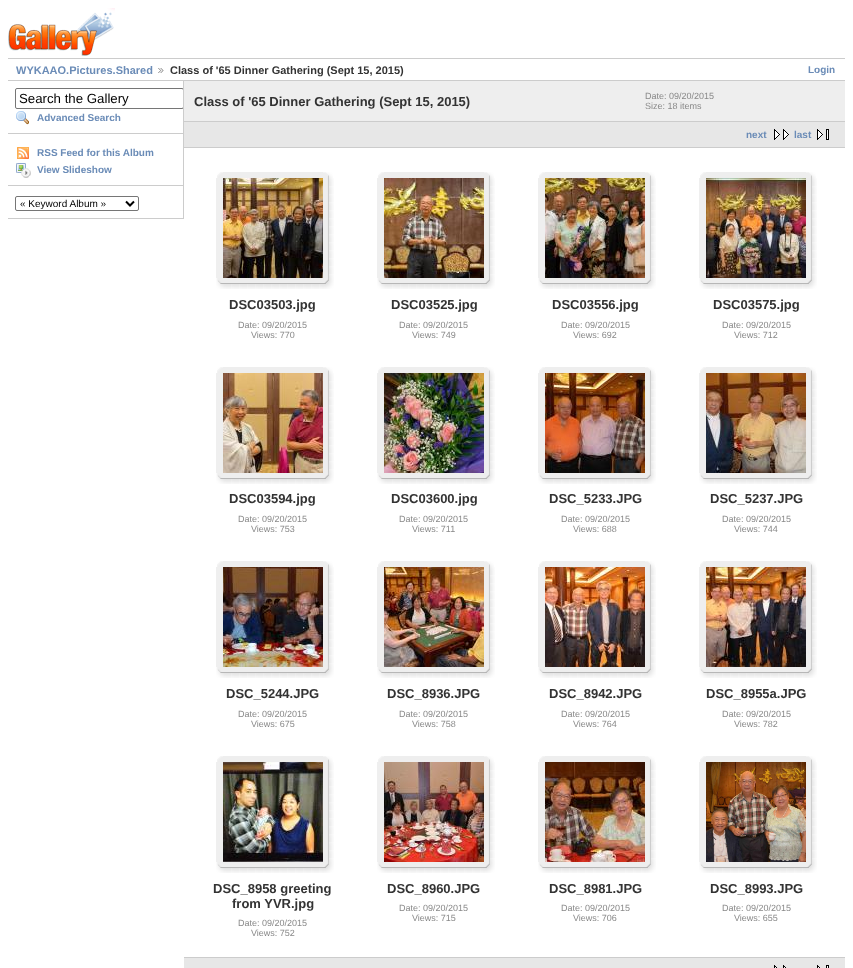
<svg xmlns="http://www.w3.org/2000/svg" xmlns:xlink="http://www.w3.org/1999/xlink" width="853" height="968" viewBox="0 0 853 968">
<style>
.cls-1{font:bold 11px Liberation Sans;fill:#6b8cb7}
.cls-2{font:bold 11px Liberation Sans;fill:#333333}
.cls-3{font:bold 10px Liberation Sans;fill:#6b8cb7}
.cls-4{font:13.25px Liberation Sans;fill:#000000}
.cls-5{font:10px Liberation Sans;fill:#000000}
.cls-6{font:bold 13px Liberation Sans;fill:#333333}
.cls-7{font:9px Liberation Sans;fill:#888888}
</style>
<defs>
<clipPath id="clip1"><rect x="8" y="81" width="175" height="138"/></clipPath>
</defs>
<rect width="100%" height="100%" fill="#ffffff"/>
<image xlink:href="image0.png" x="8" y="8" width="107" height="48"/>
<rect fill="#cccccc" x="8" y="58" width="837" height="1"/>
<rect fill="#cccccc" x="8" y="80" width="837" height="1"/>
<image xlink:href="image1.png" x="158" y="68" width="6" height="5"/>
<rect fill="#cccccc" x="183" y="81" width="1" height="138"/>
<rect fill="#cccccc" x="8" y="133" width="175" height="1"/>
<g clip-path="url(#clip1)">
<rect fill="none" stroke="#767676" x="15.5" y="88.5" width="168" height="20" rx="1.5"/>
</g>
<image xlink:href="image2.png" x="16" y="111" width="13" height="14"/>
<rect fill="#cccccc" x="8" y="185" width="175" height="1"/>
<image xlink:href="image3.png" x="17" y="147" width="12" height="12"/>
<image xlink:href="image4.png" x="16" y="163" width="15" height="15"/>
<rect fill="#cccccc" x="8" y="218" width="175" height="1"/>
<rect fill="none" stroke="#767676" x="15.5" y="196.5" width="123" height="14" rx="1.5"/>
<path fill="none" stroke="#000000" stroke-width="2" d="M126 201.5L130 205.5L134 201.5"/>
<rect fill="#eeeeee" x="184" y="81" width="661" height="40"/>
<rect fill="#cccccc" x="184" y="121" width="661" height="1"/>
<rect fill="#e7e7e7" x="184" y="122" width="661" height="25"/>
<rect fill="#cccccc" x="184" y="147" width="661" height="1"/>
<image xlink:href="image5.png" x="774" y="129" width="15" height="11"/>
<image xlink:href="image6.png" x="817" y="129" width="12" height="11"/>
<rect fill="#cccccc" x="184" y="957" width="661" height="1"/>
<image xlink:href="image7.png" x="217" y="172" width="6" height="6"/>
<rect fill="#eeeeee" x="223" y="172" width="100" height="6"/>
<image xlink:href="image8.png" x="323" y="172" width="10" height="6"/>
<rect fill="#efefef" x="216" y="178" width="7" height="100"/>
<image xlink:href="image9.png" x="223" y="178" width="100" height="100"/>
<image xlink:href="image10.png" x="323" y="178" width="11" height="100"/>
<image xlink:href="image11.png" x="216" y="278" width="7" height="11"/>
<image xlink:href="image12.png" x="223" y="278" width="100" height="11"/>
<image xlink:href="image13.png" x="323" y="278" width="11" height="11"/>
<image xlink:href="image7.png" x="378" y="172" width="6" height="6"/>
<rect fill="#eeeeee" x="384" y="172" width="100" height="6"/>
<image xlink:href="image8.png" x="484" y="172" width="10" height="6"/>
<rect fill="#efefef" x="377" y="178" width="7" height="100"/>
<image xlink:href="image14.png" x="384" y="178" width="100" height="100"/>
<image xlink:href="image10.png" x="484" y="178" width="11" height="100"/>
<image xlink:href="image11.png" x="377" y="278" width="7" height="11"/>
<image xlink:href="image12.png" x="384" y="278" width="100" height="11"/>
<image xlink:href="image13.png" x="484" y="278" width="11" height="11"/>
<image xlink:href="image7.png" x="539" y="172" width="6" height="6"/>
<rect fill="#eeeeee" x="545" y="172" width="100" height="6"/>
<image xlink:href="image8.png" x="645" y="172" width="10" height="6"/>
<rect fill="#efefef" x="538" y="178" width="7" height="100"/>
<image xlink:href="image15.png" x="545" y="178" width="100" height="100"/>
<image xlink:href="image10.png" x="645" y="178" width="11" height="100"/>
<image xlink:href="image11.png" x="538" y="278" width="7" height="11"/>
<image xlink:href="image12.png" x="545" y="278" width="100" height="11"/>
<image xlink:href="image13.png" x="645" y="278" width="11" height="11"/>
<image xlink:href="image7.png" x="700" y="172" width="6" height="6"/>
<rect fill="#eeeeee" x="706" y="172" width="100" height="6"/>
<image xlink:href="image8.png" x="806" y="172" width="10" height="6"/>
<rect fill="#efefef" x="699" y="178" width="7" height="100"/>
<image xlink:href="image16.png" x="706" y="178" width="100" height="100"/>
<image xlink:href="image10.png" x="806" y="178" width="11" height="100"/>
<image xlink:href="image11.png" x="699" y="278" width="7" height="11"/>
<image xlink:href="image12.png" x="706" y="278" width="100" height="11"/>
<image xlink:href="image13.png" x="806" y="278" width="11" height="11"/>
<image xlink:href="image7.png" x="217" y="367" width="6" height="6"/>
<rect fill="#eeeeee" x="223" y="367" width="100" height="6"/>
<image xlink:href="image8.png" x="323" y="367" width="10" height="6"/>
<rect fill="#efefef" x="216" y="373" width="7" height="100"/>
<image xlink:href="image17.png" x="223" y="373" width="100" height="100"/>
<image xlink:href="image10.png" x="323" y="373" width="11" height="100"/>
<image xlink:href="image11.png" x="216" y="473" width="7" height="11"/>
<image xlink:href="image12.png" x="223" y="473" width="100" height="11"/>
<image xlink:href="image13.png" x="323" y="473" width="11" height="11"/>
<image xlink:href="image7.png" x="378" y="367" width="6" height="6"/>
<rect fill="#eeeeee" x="384" y="367" width="100" height="6"/>
<image xlink:href="image8.png" x="484" y="367" width="10" height="6"/>
<rect fill="#efefef" x="377" y="373" width="7" height="100"/>
<image xlink:href="image18.png" x="384" y="373" width="100" height="100"/>
<image xlink:href="image10.png" x="484" y="373" width="11" height="100"/>
<image xlink:href="image11.png" x="377" y="473" width="7" height="11"/>
<image xlink:href="image12.png" x="384" y="473" width="100" height="11"/>
<image xlink:href="image13.png" x="484" y="473" width="11" height="11"/>
<image xlink:href="image7.png" x="539" y="367" width="6" height="6"/>
<rect fill="#eeeeee" x="545" y="367" width="100" height="6"/>
<image xlink:href="image8.png" x="645" y="367" width="10" height="6"/>
<rect fill="#efefef" x="538" y="373" width="7" height="100"/>
<image xlink:href="image19.png" x="545" y="373" width="100" height="100"/>
<image xlink:href="image10.png" x="645" y="373" width="11" height="100"/>
<image xlink:href="image11.png" x="538" y="473" width="7" height="11"/>
<image xlink:href="image12.png" x="545" y="473" width="100" height="11"/>
<image xlink:href="image13.png" x="645" y="473" width="11" height="11"/>
<image xlink:href="image7.png" x="700" y="367" width="6" height="6"/>
<rect fill="#eeeeee" x="706" y="367" width="100" height="6"/>
<image xlink:href="image8.png" x="806" y="367" width="10" height="6"/>
<rect fill="#efefef" x="699" y="373" width="7" height="100"/>
<image xlink:href="image20.png" x="706" y="373" width="100" height="100"/>
<image xlink:href="image10.png" x="806" y="373" width="11" height="100"/>
<image xlink:href="image11.png" x="699" y="473" width="7" height="11"/>
<image xlink:href="image12.png" x="706" y="473" width="100" height="11"/>
<image xlink:href="image13.png" x="806" y="473" width="11" height="11"/>
<image xlink:href="image7.png" x="217" y="561" width="6" height="6"/>
<rect fill="#eeeeee" x="223" y="561" width="100" height="6"/>
<image xlink:href="image8.png" x="323" y="561" width="10" height="6"/>
<rect fill="#efefef" x="216" y="567" width="7" height="100"/>
<image xlink:href="image21.png" x="223" y="567" width="100" height="100"/>
<image xlink:href="image10.png" x="323" y="567" width="11" height="100"/>
<image xlink:href="image11.png" x="216" y="667" width="7" height="11"/>
<image xlink:href="image12.png" x="223" y="667" width="100" height="11"/>
<image xlink:href="image13.png" x="323" y="667" width="11" height="11"/>
<image xlink:href="image7.png" x="378" y="561" width="6" height="6"/>
<rect fill="#eeeeee" x="384" y="561" width="100" height="6"/>
<image xlink:href="image8.png" x="484" y="561" width="10" height="6"/>
<rect fill="#efefef" x="377" y="567" width="7" height="100"/>
<image xlink:href="image22.png" x="384" y="567" width="100" height="100"/>
<image xlink:href="image10.png" x="484" y="567" width="11" height="100"/>
<image xlink:href="image11.png" x="377" y="667" width="7" height="11"/>
<image xlink:href="image12.png" x="384" y="667" width="100" height="11"/>
<image xlink:href="image13.png" x="484" y="667" width="11" height="11"/>
<image xlink:href="image7.png" x="539" y="561" width="6" height="6"/>
<rect fill="#eeeeee" x="545" y="561" width="100" height="6"/>
<image xlink:href="image8.png" x="645" y="561" width="10" height="6"/>
<rect fill="#efefef" x="538" y="567" width="7" height="100"/>
<image xlink:href="image23.png" x="545" y="567" width="100" height="100"/>
<image xlink:href="image10.png" x="645" y="567" width="11" height="100"/>
<image xlink:href="image11.png" x="538" y="667" width="7" height="11"/>
<image xlink:href="image12.png" x="545" y="667" width="100" height="11"/>
<image xlink:href="image13.png" x="645" y="667" width="11" height="11"/>
<image xlink:href="image7.png" x="700" y="561" width="6" height="6"/>
<rect fill="#eeeeee" x="706" y="561" width="100" height="6"/>
<image xlink:href="image8.png" x="806" y="561" width="10" height="6"/>
<rect fill="#efefef" x="699" y="567" width="7" height="100"/>
<image xlink:href="image24.png" x="706" y="567" width="100" height="100"/>
<image xlink:href="image10.png" x="806" y="567" width="11" height="100"/>
<image xlink:href="image11.png" x="699" y="667" width="7" height="11"/>
<image xlink:href="image12.png" x="706" y="667" width="100" height="11"/>
<image xlink:href="image13.png" x="806" y="667" width="11" height="11"/>
<image xlink:href="image7.png" x="217" y="756" width="6" height="6"/>
<rect fill="#eeeeee" x="223" y="756" width="100" height="6"/>
<image xlink:href="image8.png" x="323" y="756" width="10" height="6"/>
<rect fill="#efefef" x="216" y="762" width="7" height="100"/>
<image xlink:href="image25.png" x="223" y="762" width="100" height="100"/>
<image xlink:href="image10.png" x="323" y="762" width="11" height="100"/>
<image xlink:href="image11.png" x="216" y="862" width="7" height="11"/>
<image xlink:href="image12.png" x="223" y="862" width="100" height="11"/>
<image xlink:href="image13.png" x="323" y="862" width="11" height="11"/>
<image xlink:href="image7.png" x="378" y="756" width="6" height="6"/>
<rect fill="#eeeeee" x="384" y="756" width="100" height="6"/>
<image xlink:href="image8.png" x="484" y="756" width="10" height="6"/>
<rect fill="#efefef" x="377" y="762" width="7" height="100"/>
<image xlink:href="image26.png" x="384" y="762" width="100" height="100"/>
<image xlink:href="image10.png" x="484" y="762" width="11" height="100"/>
<image xlink:href="image11.png" x="377" y="862" width="7" height="11"/>
<image xlink:href="image12.png" x="384" y="862" width="100" height="11"/>
<image xlink:href="image13.png" x="484" y="862" width="11" height="11"/>
<image xlink:href="image7.png" x="539" y="756" width="6" height="6"/>
<rect fill="#eeeeee" x="545" y="756" width="100" height="6"/>
<image xlink:href="image8.png" x="645" y="756" width="10" height="6"/>
<rect fill="#efefef" x="538" y="762" width="7" height="100"/>
<image xlink:href="image27.png" x="545" y="762" width="100" height="100"/>
<image xlink:href="image10.png" x="645" y="762" width="11" height="100"/>
<image xlink:href="image11.png" x="538" y="862" width="7" height="11"/>
<image xlink:href="image12.png" x="545" y="862" width="100" height="11"/>
<image xlink:href="image13.png" x="645" y="862" width="11" height="11"/>
<image xlink:href="image7.png" x="700" y="756" width="6" height="6"/>
<rect fill="#eeeeee" x="706" y="756" width="100" height="6"/>
<image xlink:href="image8.png" x="806" y="756" width="10" height="6"/>
<rect fill="#efefef" x="699" y="762" width="7" height="100"/>
<image xlink:href="image28.png" x="706" y="762" width="100" height="100"/>
<image xlink:href="image10.png" x="806" y="762" width="11" height="100"/>
<image xlink:href="image11.png" x="699" y="862" width="7" height="11"/>
<image xlink:href="image12.png" x="706" y="862" width="100" height="11"/>
<image xlink:href="image13.png" x="806" y="862" width="11" height="11"/>
<rect fill="#e7e7e7" x="184" y="958" width="661" height="10"/>
<image xlink:href="image29.png" x="774" y="965" width="12" height="3"/>
<image xlink:href="image30.png" x="817" y="965" width="12" height="3"/>
<text class="cls-1" x="16" y="74">WYKAAO.Pictures.Shared</text>
<text class="cls-2" x="170" y="74">Class of '65 Dinner Gathering (Sept 15, 2015)</text>
<text class="cls-3" x="808" y="73">Login</text>
<text class="cls-4" x="19" y="103">Search the Gallery</text>
<text class="cls-3" x="37" y="121">Advanced Search</text>
<text class="cls-3"><tspan x="37" y="156">RSS Feed for this Album</tspan><tspan x="37" y="173">View Slideshow</tspan></text>
<text class="cls-5" x="20" y="207">« Keyword Album »</text>
<text class="cls-6" x="194" y="106">Class of '65 Dinner Gathering (Sept 15, 2015)</text>
<text class="cls-7"><tspan x="645" y="99">Date: 09/20/2015</tspan><tspan x="645" y="109">Size: 18 items</tspan></text>
<text class="cls-3" x="746" y="138">next</text>
<text class="cls-3" x="794" y="138">last</text>
<text class="cls-6" x="229" y="309">DSC03503.jpg</text>
<text class="cls-7" x="238" y="328">Date: 09/20/2015</text>
<text class="cls-7" x="251" y="338">Views: 770</text>
<text class="cls-6" x="391" y="309">DSC03525.jpg</text>
<text class="cls-7" x="399" y="328">Date: 09/20/2015</text>
<text class="cls-7" x="412" y="338">Views: 749</text>
<text class="cls-6" x="552" y="309">DSC03556.jpg</text>
<text class="cls-7" x="561" y="328">Date: 09/20/2015</text>
<text class="cls-7" x="573" y="338">Views: 692</text>
<text class="cls-6" x="713" y="309">DSC03575.jpg</text>
<text class="cls-7" x="722" y="328">Date: 09/20/2015</text>
<text class="cls-7" x="734" y="338">Views: 712</text>
<text class="cls-6" x="229" y="503">DSC03594.jpg</text>
<text class="cls-7" x="238" y="522">Date: 09/20/2015</text>
<text class="cls-7" x="251" y="532">Views: 753</text>
<text class="cls-6" x="391" y="503">DSC03600.jpg</text>
<text class="cls-7" x="399" y="522">Date: 09/20/2015</text>
<text class="cls-7" x="412" y="532">Views: 711</text>
<text class="cls-6" x="549" y="503">DSC_5233.JPG</text>
<text class="cls-7" x="561" y="522">Date: 09/20/2015</text>
<text class="cls-7" x="573" y="532">Views: 688</text>
<text class="cls-6" x="710" y="503">DSC_5237.JPG</text>
<text class="cls-7" x="722" y="522">Date: 09/20/2015</text>
<text class="cls-7" x="734" y="532">Views: 744</text>
<text class="cls-6" x="226" y="698">DSC_5244.JPG</text>
<text class="cls-7" x="238" y="717">Date: 09/20/2015</text>
<text class="cls-7" x="251" y="727">Views: 675</text>
<text class="cls-6" x="387" y="698">DSC_8936.JPG</text>
<text class="cls-7" x="399" y="717">Date: 09/20/2015</text>
<text class="cls-7" x="412" y="727">Views: 758</text>
<text class="cls-6" x="549" y="698">DSC_8942.JPG</text>
<text class="cls-7" x="561" y="717">Date: 09/20/2015</text>
<text class="cls-7" x="573" y="727">Views: 764</text>
<text class="cls-6" x="706" y="698">DSC_8955a.JPG</text>
<text class="cls-7" x="722" y="717">Date: 09/20/2015</text>
<text class="cls-7" x="734" y="727">Views: 782</text>
<text class="cls-6" x="213" y="893">DSC_8958 greeting</text>
<text class="cls-6" x="232" y="908">from YVR.jpg</text>
<text class="cls-7" x="238" y="926">Date: 09/20/2015</text>
<text class="cls-7" x="251" y="936">Views: 752</text>
<text class="cls-6" x="387" y="893">DSC_8960.JPG</text>
<text class="cls-7" x="399" y="911">Date: 09/20/2015</text>
<text class="cls-7" x="412" y="921">Views: 715</text>
<text class="cls-6" x="549" y="893">DSC_8981.JPG</text>
<text class="cls-7" x="561" y="911">Date: 09/20/2015</text>
<text class="cls-7" x="573" y="921">Views: 706</text>
<text class="cls-6" x="710" y="893">DSC_8993.JPG</text>
<text class="cls-7" x="722" y="911">Date: 09/20/2015</text>
<text class="cls-7" x="734" y="921">Views: 655</text>
</svg>
